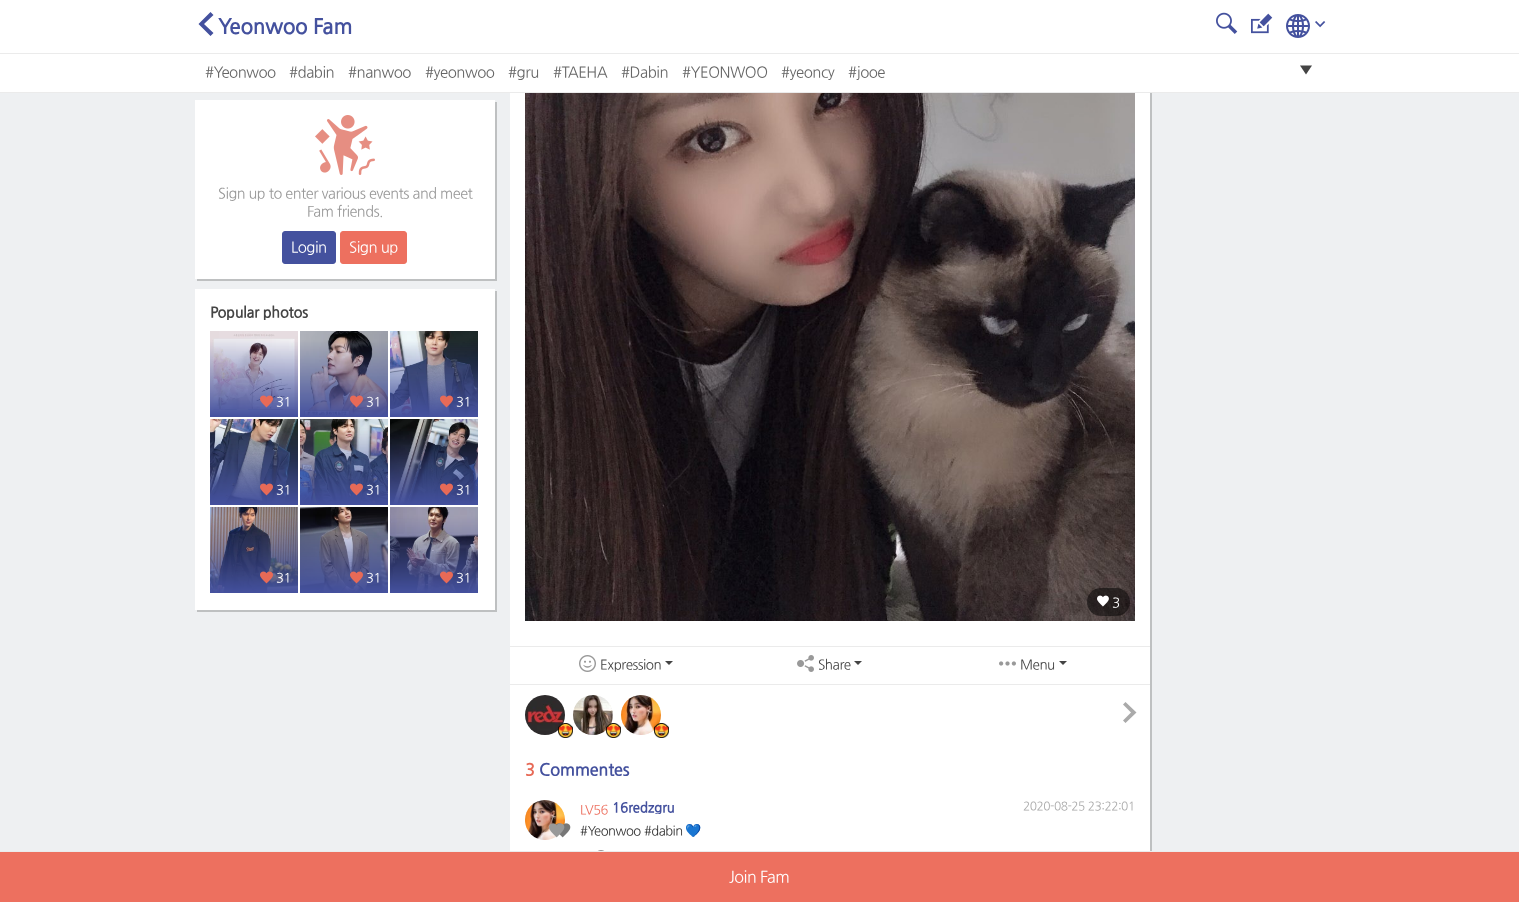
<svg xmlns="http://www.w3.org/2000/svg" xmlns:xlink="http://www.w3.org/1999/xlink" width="1519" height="902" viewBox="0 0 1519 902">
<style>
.cls-1{font:bold 21.25px NanumGothic;letter-spacing:-0.5px;fill:#44519e}
.cls-2{font:15px NanumGothic;letter-spacing:-0.5px;fill:#666666}
.cls-3{font:14.5px NanumGothic;letter-spacing:-0.5px;fill:#999999}
.cls-4{font:15px NanumGothic;letter-spacing:-0.5px;fill:#ffffff}
.cls-5{font:bold 15px NanumGothic;letter-spacing:-0.5px;fill:#444444}
.cls-6{font:13px NanumGothic;letter-spacing:-0.5px;fill:#ffffff}
.cls-7{font:13.5px NanumGothic;letter-spacing:-0.5px;fill:#ffffff}
.cls-8{font:13.5px NanumGothic;letter-spacing:-0.5px;fill:#444444}
.cls-9{font:bold 17px NanumGothic;letter-spacing:-0.5px;fill:#e76a57}
.cls-10{font:bold 17px NanumGothic;letter-spacing:-0.5px;fill:#44519e}
.cls-11{font:13px NanumGothic;letter-spacing:-0.5px;fill:#ed705f}
.cls-12{font:bold 14px NanumGothic;letter-spacing:-0.5px;fill:#44519e}
.cls-13{font:12px NanumGothic;letter-spacing:-0.5px;fill:#aaaaaa}
.cls-14{font:13px NanumGothic;letter-spacing:-0.5px;fill:#333333}
.cls-15{font:13px Noto Color Emoji;letter-spacing:-0.5px;fill:#333333}
.cls-16{font:16px NanumGothic;letter-spacing:-0.5px;fill:#ffffff}
</style>
<defs>
<clipPath id="clip1"><rect x="612" y="800" width="80" height="14"/></clipPath>
</defs>
<rect width="100%" height="100%" fill="#eef0f2"/>
<rect fill="#000000" fill-opacity="0.2" filter="blur(0.5px)" x="512" y="-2" width="640" height="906"/>
<rect fill="#ffffff" x="0" y="0" width="1519" height="53"/>
<rect fill="#ebebeb" x="0" y="53" width="1519" height="1"/>
<path fill="#44519e" d="M210.5 12L213.5 15L204 24L213.5 33L210.5 36L198.5 24Z"/>
<image xlink:href="image0.png" x="1216" y="12" width="22" height="22"/>
<image xlink:href="image1.png" x="1251" y="13" width="22" height="21"/>
<image xlink:href="image2.png" x="1286" y="14" width="24" height="24"/>
<image xlink:href="image3.png" x="1315" y="21" width="11" height="7"/>
<rect fill="#ffffff" x="0" y="54" width="1519" height="38"/>
<rect fill="#ebebeb" x="0" y="92" width="1519" height="1"/>
<path fill="#444444" d="M1306 74.5L1300 65.5H1312Z"/>
<rect fill="#000000" fill-opacity="0.2" filter="blur(0.5px)" x="197" y="102" width="300" height="179"/>
<rect fill="#ffffff" x="195" y="100" width="300" height="179"/>
<image xlink:href="image4.png" x="315" y="115" width="60" height="60"/>
<rect fill="#44519e" stroke="#44519e" x="282.5" y="231.5" width="53" height="32" rx="2.5"/>
<rect fill="#ed705f" stroke="#ed705f" x="340.5" y="231.5" width="66" height="32" rx="2.5"/>
<rect fill="#000000" fill-opacity="0.2" filter="blur(0.5px)" x="197" y="291" width="300" height="321"/>
<rect fill="#ffffff" x="195" y="289" width="300" height="321"/>
<image xlink:href="image5.png" x="210" y="331" width="88" height="86"/>
<image xlink:href="image6.png" x="260" y="395" width="13" height="13"/>
<image xlink:href="image7.png" x="300" y="331" width="88" height="86"/>
<image xlink:href="image8.png" x="350" y="395" width="13" height="13"/>
<image xlink:href="image9.png" x="390" y="331" width="88" height="86"/>
<image xlink:href="image10.png" x="440" y="395" width="13" height="13"/>
<image xlink:href="image11.png" x="210" y="419" width="88" height="86"/>
<image xlink:href="image12.png" x="260" y="483" width="13" height="13"/>
<image xlink:href="image13.png" x="300" y="419" width="88" height="86"/>
<image xlink:href="image14.png" x="350" y="483" width="13" height="13"/>
<image xlink:href="image15.png" x="390" y="419" width="88" height="86"/>
<image xlink:href="image16.png" x="440" y="483" width="13" height="13"/>
<image xlink:href="image17.png" x="210" y="507" width="88" height="86"/>
<image xlink:href="image18.png" x="260" y="571" width="13" height="13"/>
<image xlink:href="image19.png" x="300" y="507" width="88" height="86"/>
<image xlink:href="image20.png" x="350" y="571" width="13" height="13"/>
<image xlink:href="image21.png" x="390" y="507" width="88" height="86"/>
<image xlink:href="image22.png" x="440" y="571" width="13" height="13"/>
<rect fill="#ffffff" x="510" y="93" width="640" height="758"/>
<image xlink:href="image23.png" x="525" y="93" width="610" height="528"/>
<rect fill="#000000" fill-opacity="0.5" x="1087" y="588" width="43" height="28" rx="14"/>
<image xlink:href="image24.png" x="1097" y="595" width="12" height="12"/>
<rect fill="#ebebeb" x="510" y="646" width="640" height="1"/>
<rect fill="#ebebeb" x="510" y="684" width="640" height="1"/>
<image xlink:href="image25.png" x="579" y="655" width="17" height="17"/>
<path fill="#444444" d="M665 661H673L669 665Z"/>
<image xlink:href="image26.png" x="797" y="655" width="17" height="17"/>
<path fill="#444444" d="M854 661H862L858 665Z"/>
<image xlink:href="image27.png" x="999" y="661" width="17" height="5"/>
<path fill="#444444" d="M1059 661H1067L1063 665Z"/>
<image xlink:href="image28.png" x="525" y="695" width="40" height="40"/>
<image xlink:href="image29.png" x="558" y="723" width="15" height="15"/>
<image xlink:href="image30.png" x="573" y="695" width="40" height="40"/>
<image xlink:href="image31.png" x="606" y="723" width="15" height="15"/>
<image xlink:href="image32.png" x="621" y="695" width="40" height="40"/>
<image xlink:href="image33.png" x="654" y="723" width="15" height="15"/>
<path fill="#aaaaaa" d="M1125.5 723L1123 720.5L1131 712.5L1123 704.5L1125.5 702L1136.5 712.5Z"/>
<image xlink:href="image34.png" x="525" y="800" width="40" height="40"/>
<image xlink:href="image36.png" x="555" y="823" width="16" height="15"/>
<image xlink:href="image35.png" x="549" y="823" width="16" height="15"/>
<image xlink:href="image37.png" x="597" y="850" width="8" height="1"/>
<rect fill="#ebebeb" x="0" y="851" width="1519" height="1"/>
<rect fill="#ed705f" x="0" y="852" width="1519" height="50"/>
<text class="cls-1" x="218" y="33">Yeonwoo Fam</text>
<text class="cls-2" x="205" y="77">#Yeonwoo</text>
<text class="cls-2" x="289" y="77">#dabin</text>
<text class="cls-2" x="348" y="77">#nanwoo</text>
<text class="cls-2" x="425" y="77">#yeonwoo</text>
<text class="cls-2" x="508" y="77">#gru</text>
<text class="cls-2" x="553" y="77">#TAEHA</text>
<text class="cls-2" x="621" y="77">#Dabin</text>
<text class="cls-2" x="682" y="77">#YEONWOO</text>
<text class="cls-2" x="781" y="77">#yeoncy</text>
<text class="cls-2" x="848" y="77">#jooe</text>
<text class="cls-3" x="218" y="198">Sign up to enter various events and meet</text>
<text class="cls-3" x="307" y="216">Fam friends.</text>
<text class="cls-4" x="291" y="252">Login</text>
<text class="cls-4" x="349" y="252">Sign up</text>
<text class="cls-5" x="210" y="317">Popular photos</text>
<text class="cls-6" x="276" y="406">31</text>
<text class="cls-6" x="366" y="406">31</text>
<text class="cls-6" x="456" y="406">31</text>
<text class="cls-6" x="276" y="494">31</text>
<text class="cls-6" x="366" y="494">31</text>
<text class="cls-6" x="456" y="494">31</text>
<text class="cls-6" x="276" y="582">31</text>
<text class="cls-6" x="366" y="582">31</text>
<text class="cls-6" x="456" y="582">31</text>
<text class="cls-7" x="1112" y="607">3</text>
<text class="cls-8" x="600" y="669">Expression</text>
<text class="cls-8" x="818" y="669">Share</text>
<text class="cls-8" x="1020" y="669">Menu</text>
<text class="cls-9" x="525" y="775">3</text>
<text class="cls-10" x="539" y="775">Commentes</text>
<text class="cls-11" x="580" y="814">LV56</text>
<g clip-path="url(#clip1)">
<text class="cls-12" x="612" y="812">16redzgru</text>
</g>
<text class="cls-13" x="1023" y="810">2020-08-25 23:22:01</text>
<text class="cls-14" x="580" y="835">#Yeonwoo #dabin</text>
<text class="cls-15" x="685" y="835">💙</text>
<text class="cls-16" x="729" y="882">Join Fam</text>
</svg>
